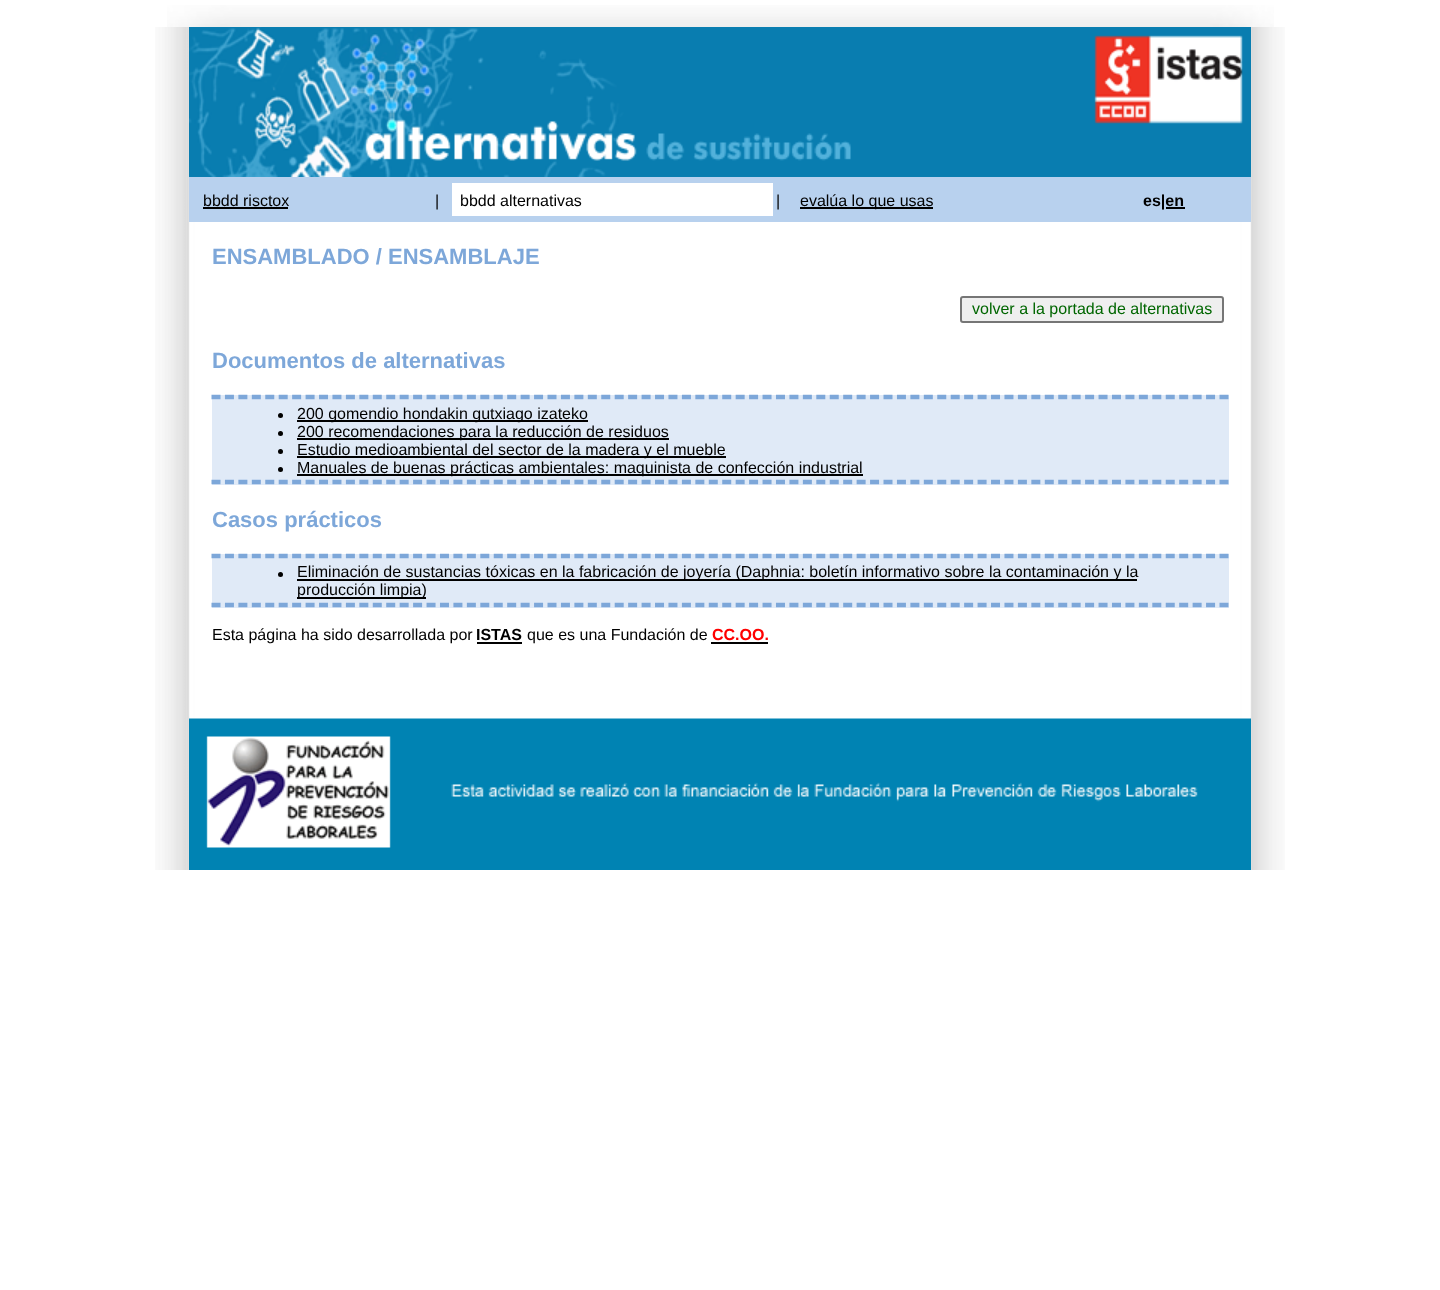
<svg xmlns="http://www.w3.org/2000/svg" xmlns:xlink="http://www.w3.org/1999/xlink" width="1440" height="1290" viewBox="0 0 1440 1290">
<style>
.cls-1{font:16px Liberation Sans;fill:#000000}
.cls-2{font:bold 16px Liberation Sans;fill:#000000}
.cls-3{font:bold 22px Liberation Sans;fill:#7da7d9}
.cls-4{font:16px Liberation Sans;fill:#006600}
.cls-5{font:bold 16px Liberation Sans;fill:#ff0000}
</style>
<rect width="100%" height="100%" fill="#ffffff"/>
<image xlink:href="image0.png" x="167" y="5" width="1107" height="22"/>
<image xlink:href="image1.png" x="155" y="27" width="1130" height="843"/>
<image xlink:href="image2.png" x="189" y="27" width="1062" height="150"/>
<rect fill="#b8d1ee" x="189" y="177" width="1062" height="45"/>
<rect fill="#000000" x="203" y="207" width="85" height="2"/>
<rect fill="#ffffff" x="452" y="183" width="321" height="33"/>
<rect fill="#000000" x="800" y="207" width="133" height="2"/>
<rect fill="#000000" x="1166" y="207" width="19" height="2"/>
<rect fill="#efefef" stroke="#767676" stroke-width="2" x="961" y="297" width="262" height="25" rx="2"/>
<rect fill="#e0eaf7" x="212" y="395" width="1017" height="90"/>
<path fill="none" stroke="#7da7d9" stroke-width="4.5" stroke-dasharray="9 4.44" d="M211.5 397H1228.5"/>
<path fill="none" stroke="#7da7d9" stroke-width="4.5" stroke-dasharray="9 4.44" d="M211.5 482H1228.5"/>
<circle fill="#000000" cx="280.5" cy="415.5" r="2.5"/>
<rect fill="#000000" x="297" y="420" width="291" height="2"/>
<circle fill="#000000" cx="280.5" cy="433.5" r="2.5"/>
<rect fill="#000000" x="297" y="438" width="372" height="2"/>
<circle fill="#000000" cx="280.5" cy="451.5" r="2.5"/>
<rect fill="#000000" x="297" y="456" width="429" height="2"/>
<circle fill="#000000" cx="280.5" cy="469.5" r="2.5"/>
<rect fill="#000000" x="297" y="474" width="566" height="2"/>
<rect fill="#e0eaf7" x="212" y="554" width="1017" height="54"/>
<path fill="none" stroke="#7da7d9" stroke-width="4.5" stroke-dasharray="9 4.44" d="M211.5 556H1228.5"/>
<path fill="none" stroke="#7da7d9" stroke-width="4.5" stroke-dasharray="9 4.44" d="M211.5 605H1228.5"/>
<circle fill="#000000" cx="280.5" cy="574.5" r="2.5"/>
<rect fill="#000000" x="297" y="579" width="840" height="2"/>
<rect fill="#000000" x="297" y="597" width="129" height="2"/>
<rect fill="#000000" x="477" y="642" width="45" height="2"/>
<rect fill="#000000" x="711" y="642" width="57" height="2"/>
<image xlink:href="image3.png" x="189" y="718" width="1062" height="152"/>
<text class="cls-1" x="203" y="206">bbdd risctox</text>
<text class="cls-1" x="435" y="206">|</text>
<text class="cls-1" x="460" y="206">bbdd alternativas</text>
<text class="cls-1" x="776" y="206">|</text>
<text class="cls-1" x="800" y="206">evalúa lo que usas</text>
<text class="cls-2" x="1143" y="206">es|en</text>
<text class="cls-3" x="212" y="264">ENSAMBLADO / ENSAMBLAJE</text>
<text class="cls-4" x="972" y="314">volver a la portada de alternativas</text>
<text class="cls-3" x="212" y="368">Documentos de alternativas</text>
<text class="cls-1"><tspan x="297" y="419">200 gomendio hondakin gutxiago izateko</tspan><tspan x="297" y="437">200 recomendaciones para la reducción de residuos</tspan><tspan x="297" y="455">Estudio medioambiental del sector de la madera y el mueble</tspan><tspan x="297" y="473">Manuales de buenas prácticas ambientales: maquinista de confección industrial</tspan></text>
<text class="cls-3" x="212" y="527">Casos prácticos</text>
<text class="cls-1"><tspan x="297" y="577">Eliminación de sustancias tóxicas en la fabricación de joyería (Daphnia: boletín informativo sobre la contaminación y la</tspan><tspan x="297" y="595">producción limpia)</tspan></text>
<text class="cls-1" x="212" y="640">Esta página ha sido desarrollada por</text>
<text class="cls-2" x="476" y="640">ISTAS</text>
<text class="cls-1" x="527" y="640">que es una Fundación de</text>
<text class="cls-5" x="712" y="640">CC.OO.</text>
</svg>
